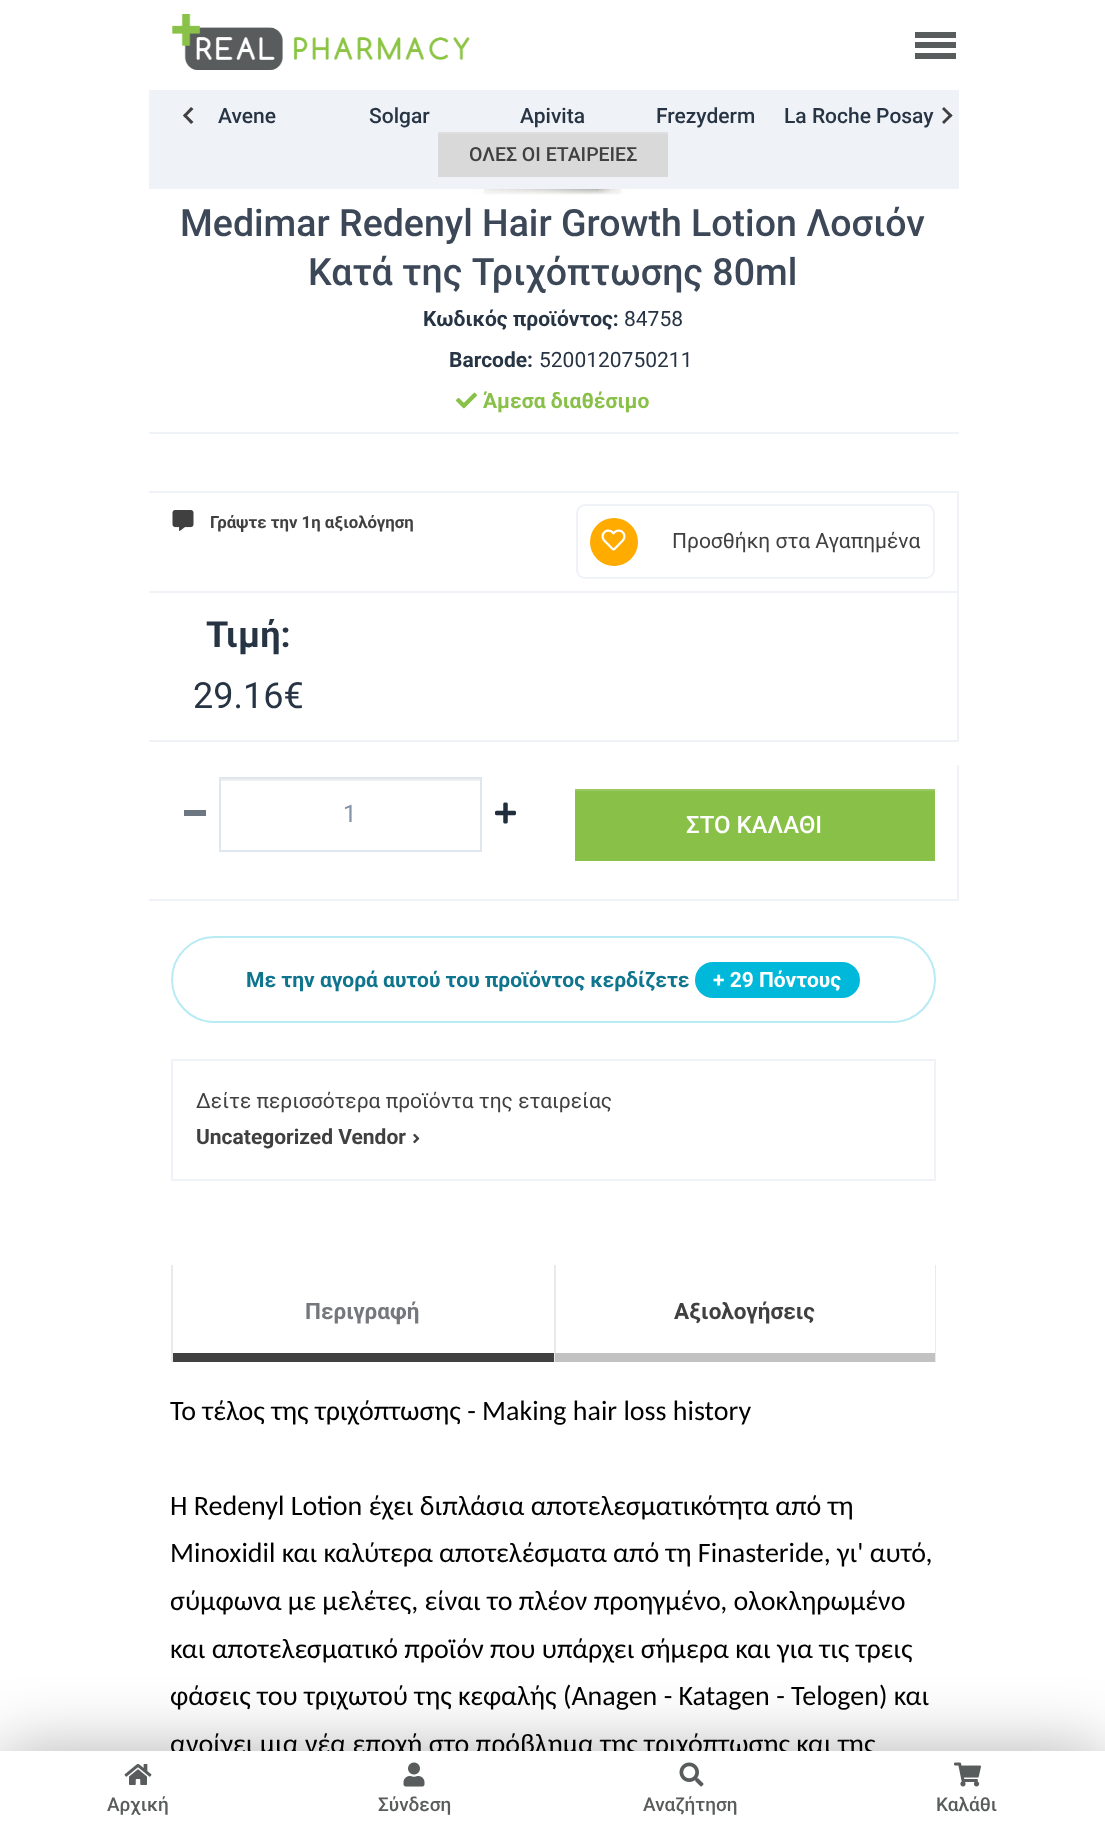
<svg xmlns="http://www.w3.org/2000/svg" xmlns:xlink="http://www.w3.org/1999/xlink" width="1105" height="1827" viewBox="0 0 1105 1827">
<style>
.cls-1{font:500 21px Roboto;fill:#273444}
.cls-2{font:500 19.5px Roboto;fill:#404040}
.cls-3{font:500 37.5px Roboto;fill:#3c4858}
.cls-4{font:bold 21px Roboto;fill:#273444}
.cls-5{font:21px Roboto;fill:#273444}
.cls-6{font:bold 21px Roboto;fill:#88c048}
.cls-7{font:bold 16.75px Roboto;fill:#404040}
.cls-8{font:21px Roboto;fill:#404040}
.cls-9{font:bold 36px Roboto;fill:#273444}
.cls-10{font:36px Roboto;fill:#273444}
.cls-11{font:24px Roboto;fill:#8492a6}
.cls-12{font:500 24px Roboto;fill:#ffffff}
.cls-13{font:bold 21px Roboto;fill:#0f758e}
.cls-14{font:bold 21px Roboto;fill:#ffffff}
.cls-15{font:bold 21px Roboto;fill:#404040}
.cls-16{font:bold 22.5px Roboto;fill:#74777b}
.cls-17{font:bold 22.5px Roboto;fill:#404040}
.cls-18{font:28px Carlito;fill:#000000}
.cls-19{font:500 19px Roboto;fill:#595c5c}
</style>
<rect width="100%" height="100%" fill="#ffffff"/>
<image xlink:href="image0.png" x="172" y="14" width="298" height="56"/>
<rect fill="#595c5c" x="915" y="32" width="41" height="6"/>
<rect fill="#595c5c" x="915" y="42" width="41" height="6"/>
<rect fill="#595c5c" x="915" y="53" width="41" height="6"/>
<rect fill="#eff2f7" x="149" y="90" width="810" height="99"/>
<path fill="#404040" d="M193.5 122L191 124L183 115.5L185 113.5Z"/>
<path fill="#404040" d="M193.5 109L185 117.5L183 115.5L191 107Z"/>
<path fill="#404040" d="M942 109L944 107L952.5 115.5L950.5 117.5Z"/>
<path fill="#404040" d="M942 122L950.5 113.5L952.5 115.5L944 124Z"/>
<rect fill="#d9d9d9" x="438" y="134" width="230" height="43"/>
<rect fill="#dfdfdf" x="438" y="132" width="230" height="2"/>
<image xlink:href="image1.png" x="470" y="189" width="157" height="6"/>
<rect fill="#eff2f7" x="149" y="432" width="810" height="2"/>
<image xlink:href="image2.png" x="456" y="392" width="21" height="17"/>
<rect fill="#eff2f7" x="149" y="491" width="810" height="2"/>
<image xlink:href="image3.png" x="172" y="510" width="22" height="21"/>
<rect fill="#eff2f7" x="957" y="492" width="2" height="99"/>
<rect fill="none" stroke="#eff2f7" stroke-width="2" x="577" y="505" width="357" height="73" rx="8"/>
<circle fill="#ffab00" cx="614" cy="542" r="24"/>
<image xlink:href="image4.png" x="601" y="529" width="25" height="22"/>
<rect fill="#eff2f7" x="149" y="591" width="810" height="2"/>
<rect fill="#eff2f7" x="957" y="591" width="2" height="150"/>
<rect fill="#eff2f7" x="149" y="740" width="810" height="2"/>
<rect fill="#eff2f7" x="957" y="765" width="2" height="135"/>
<rect fill="#eff2f7" x="149" y="899" width="810" height="2"/>
<rect fill="#6d7781" x="184" y="810" width="22" height="6"/>
<rect fill="#eeeff0" x="221" y="779" width="259" height="2"/>
<rect fill="none" stroke="#e0e6ed" stroke-width="2" x="220" y="778" width="261" height="73"/>
<image xlink:href="image5.png" x="495" y="802" width="21" height="22"/>
<rect fill="#88c048" x="575" y="791" width="360" height="70"/>
<rect fill="#9ac963" x="575" y="789" width="360" height="2"/>
<rect fill="none" stroke="#b8ebf4" stroke-width="2" x="172" y="937" width="763" height="85" rx="42.5"/>
<rect fill="#00b8d9" x="695" y="962" width="165" height="36" rx="18"/>
<rect fill="none" stroke="#eff2f7" stroke-width="2" x="172" y="1060" width="763" height="120"/>
<image xlink:href="image6.png" x="413" y="1133" width="7" height="11"/>
<rect fill="#e7ecea" x="171" y="1265" width="2" height="97"/>
<rect fill="#404040" x="173" y="1353" width="381" height="9"/>
<rect fill="#e7ecea" x="935" y="1265" width="1" height="97"/>
<rect fill="#e7ecea" x="554" y="1265" width="2" height="97"/>
<rect fill="#c2c2c2" x="555" y="1353" width="380" height="9"/>
<rect fill="#000000" fill-opacity="0.3" filter="blur(34.5px)" x="0" y="1751" width="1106" height="76"/>
<text class="cls-1" x="218" y="123">Avene</text>
<text class="cls-1" x="369" y="123">Solgar</text>
<text class="cls-1" x="520" y="123">Apivita</text>
<text class="cls-1" x="656" y="123">Frezyderm</text>
<text class="cls-1" x="784" y="123">La Roche Posay</text>
<text class="cls-2" x="469" y="161">ΟΛΕΣ ΟΙ ΕΤΑΙΡΕΙΕΣ</text>
<text class="cls-3" x="180" y="236">Medimar Redenyl Hair Growth Lotion Λοσιόν</text>
<text class="cls-3" x="308" y="285">Κατά της Τριχόπτωσης 80ml</text>
<text class="cls-4" x="423" y="326">Κωδικός προϊόντος:</text>
<text class="cls-5" x="624" y="326">84758</text>
<text class="cls-4" x="449" y="367">Barcode:</text>
<text class="cls-5" x="539" y="367">5200120750211</text>
<text class="cls-6" x="483" y="408">Άμεσα διαθέσιμο</text>
<text class="cls-7" x="210" y="528">Γράψτε την 1η αξιολόγηση</text>
<text class="cls-8" x="672" y="548">Προσθήκη στα Αγαπημένα</text>
<text class="cls-9" x="206" y="647">Τιμή:</text>
<text class="cls-10" x="193" y="708">29.16€</text>
<text class="cls-11" x="343" y="822">1</text>
<text class="cls-12" x="686" y="833">ΣΤΟ ΚΑΛΑΘΙ</text>
<text class="cls-13" x="246" y="987">Με την αγορά αυτού του προϊόντος κερδίζετε</text>
<text class="cls-14" x="713" y="987">+ 29 Πόντους</text>
<text class="cls-8" x="196" y="1108">Δείτε περισσότερα προϊόντα της εταιρείας</text>
<text class="cls-15" x="196" y="1144">Uncategorized Vendor</text>
<text class="cls-16" x="305" y="1319">Περιγραφή</text>
<text class="cls-17" x="674" y="1319">Αξιολογήσεις</text>
<text class="cls-18" x="170" y="1420">Το τέλος της τριχόπτωσης - Making hair loss history</text>
<text class="cls-18"><tspan x="170" y="1515">Η Redenyl Lotion έχει διπλάσια αποτελεσματικότητα από τη</tspan><tspan x="170" y="1562">Minoxidil και καλύτερα αποτελέσματα από τη Finasteride, γι' αυτό,</tspan><tspan x="170" y="1610">σύμφωνα με μελέτες, είναι το πλέον προηγμένο, ολοκληρωμένο</tspan><tspan x="170" y="1658">και αποτελεσματικό προϊόν που υπάρχει σήμερα και για τις τρεις</tspan><tspan x="170" y="1705">φάσεις του τριχωτού της κεφαλής (Anagen - Katagen - Telogen) και</tspan><tspan x="170" y="1753">ανοίγει μια νέα εποχή στο πρόβλημα της τριχόπτωσης και της</tspan></text>
<rect fill="#ffffff" x="0" y="1751" width="1105" height="76"/>
<image xlink:href="image7.png" x="124" y="1764" width="28" height="21"/>
<text class="cls-19" x="107" y="1811">Αρχική</text>
<image xlink:href="image8.png" x="403" y="1762" width="22" height="25"/>
<text class="cls-19" x="378" y="1811">Σύνδεση</text>
<image xlink:href="image9.png" x="679" y="1762" width="25" height="25"/>
<text class="cls-19" x="643" y="1811">Αναζήτηση</text>
<image xlink:href="image10.png" x="954" y="1762" width="27" height="25"/>
<text class="cls-19" x="936" y="1811">Καλάθι</text>
</svg>
